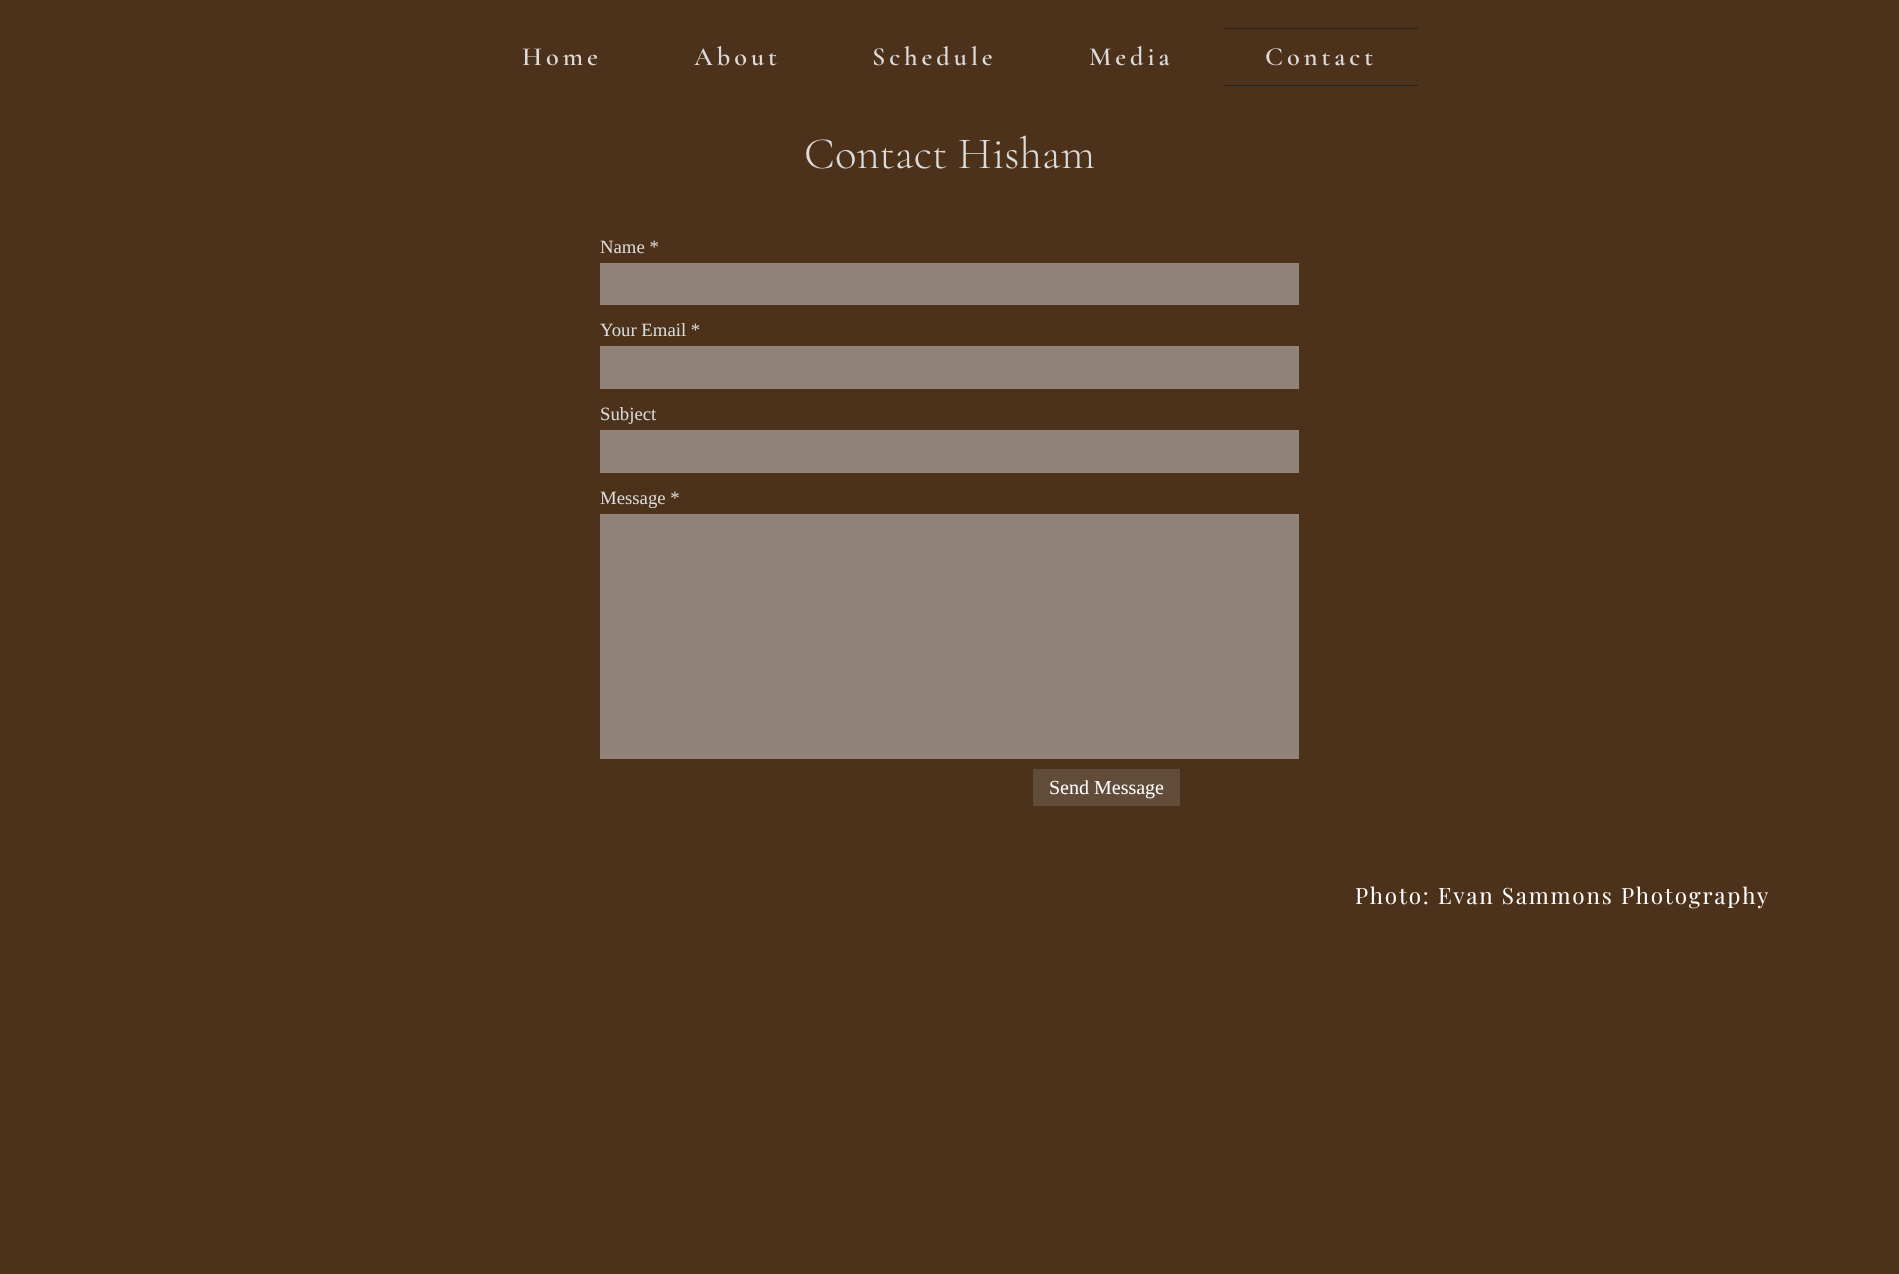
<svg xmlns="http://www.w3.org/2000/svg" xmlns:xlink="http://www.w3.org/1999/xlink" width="1899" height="1274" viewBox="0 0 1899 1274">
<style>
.cls-1{font:600 26.25px Cormorant Garamond;letter-spacing:4px;fill:#dbdbdb}
.cls-2{font:300 45px Cormorant Garamond;fill:#dbdbdb}
.cls-3{font:18.75px Liberation Serif;fill:#dbdbdb}
.cls-4{font:20px Liberation Serif;fill:#ffffff}
.cls-5{font:22.5px Playfair Display;letter-spacing:1.8px;fill:#ffffff}
</style>
<rect width="100%" height="100%" fill="#4d321b"/>
<rect fill="#222222" x="1224" y="28" width="194" height="1"/>
<rect fill="#222222" x="1224" y="85" width="194" height="1"/>
<rect fill="#918377" x="600" y="263" width="699" height="42"/>
<rect fill="#918377" x="600" y="346" width="699" height="43"/>
<rect fill="#918377" x="600" y="430" width="699" height="43"/>
<rect fill="#918377" x="600" y="514" width="699" height="245"/>
<rect fill="#614b39" x="1033" y="769" width="147" height="37"/>
<text class="cls-1" x="522" y="65">Home</text>
<text class="cls-1" x="694" y="65">About</text>
<text class="cls-1" x="872" y="65">Schedule</text>
<text class="cls-1" x="1089" y="65">Media</text>
<text class="cls-1" x="1265" y="65">Contact</text>
<text class="cls-2" x="804" y="168">Contact Hisham</text>
<text class="cls-3" x="600" y="253">Name *</text>
<text class="cls-3" x="600" y="336">Your Email *</text>
<text class="cls-3" x="600" y="420">Subject</text>
<text class="cls-3" x="600" y="504">Message *</text>
<text class="cls-4" x="1049" y="794">Send Message</text>
<text class="cls-5" x="1355" y="904">Photo: Evan Sammons Photography</text>
</svg>
